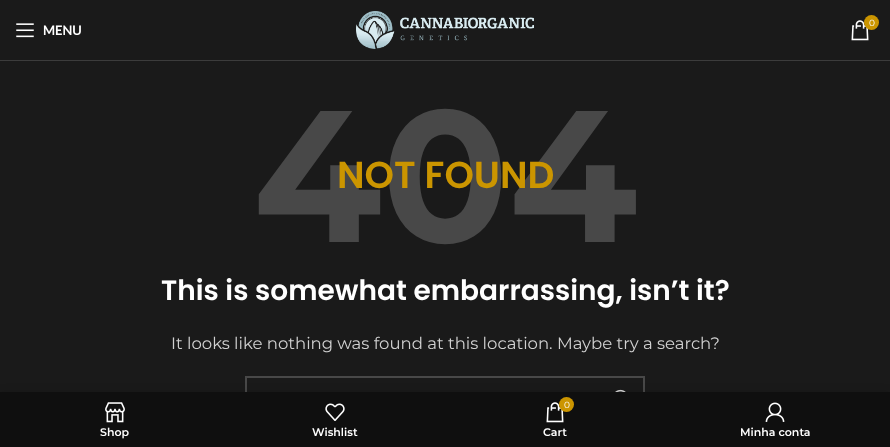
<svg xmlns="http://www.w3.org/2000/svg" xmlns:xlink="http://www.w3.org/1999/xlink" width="890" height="447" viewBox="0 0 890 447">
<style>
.cls-1{font:9px Montserrat;fill:#ffffff}
.cls-2{font:bold 13px Lato;fill:#ffffff}
.cls-3{font:bold 187px Montserrat;fill:#484848}
.cls-4{font:600 37.5px Poppins;fill:#cb9500}
.cls-5{font:600 28px Poppins;fill:#ffffff}
.cls-6{font:16.5px Montserrat;fill:#d1d1d1}
.cls-7{font:600 11px Montserrat;fill:#ffffff}
</style>
<rect width="100%" height="100%" fill="#1a1a1a"/>
<rect fill="#3c3c3c" x="0" y="60" width="890" height="1"/>
<image xlink:href="image0.png" x="356" y="11" width="178" height="38"/>
<image xlink:href="image1.png" x="851" y="20" width="18" height="21"/>
<circle fill="#cb9500" cx="871.5" cy="22.5" r="7.5"/>
<image xlink:href="image2.png" x="16" y="23" width="18" height="15"/>
<rect fill="none" stroke="#484848" stroke-width="2" x="246" y="377" width="398" height="44"/>
<image xlink:href="image3.png" x="615" y="389" width="11" height="3"/>
<rect fill="#000000" fill-opacity="0.12" filter="blur(4.5px)" x="0" y="392" width="890" height="55"/>
<rect fill="#0f0f0f" x="0" y="392" width="890" height="55"/>
<image xlink:href="image4.png" x="105" y="402" width="20" height="21"/>
<image xlink:href="image5.png" x="325" y="403" width="20" height="18"/>
<image xlink:href="image6.png" x="546" y="402" width="18" height="21"/>
<circle fill="#cb9500" cx="566.5" cy="404.5" r="7.5"/>
<image xlink:href="image7.png" x="765" y="402" width="20" height="20"/>
<text class="cls-1" x="869" y="26">0</text>
<text class="cls-2" x="43" y="35">MENU</text>
<text class="cls-3" x="253" y="242">404</text>
<text class="cls-4" x="337" y="188">NOT FOUND</text>
<text class="cls-5" x="161" y="300">This is somewhat embarrassing, isn’t it?</text>
<text class="cls-6" x="171" y="349">It looks like nothing was found at this location. Maybe try a search?</text>
<text class="cls-7" x="100" y="436">Shop</text>
<text class="cls-7" x="312" y="436">Wishlist</text>
<text class="cls-1" x="564" y="408">0</text>
<text class="cls-7" x="543" y="436">Cart</text>
<text class="cls-7" x="740" y="436">Minha conta</text>
</svg>
